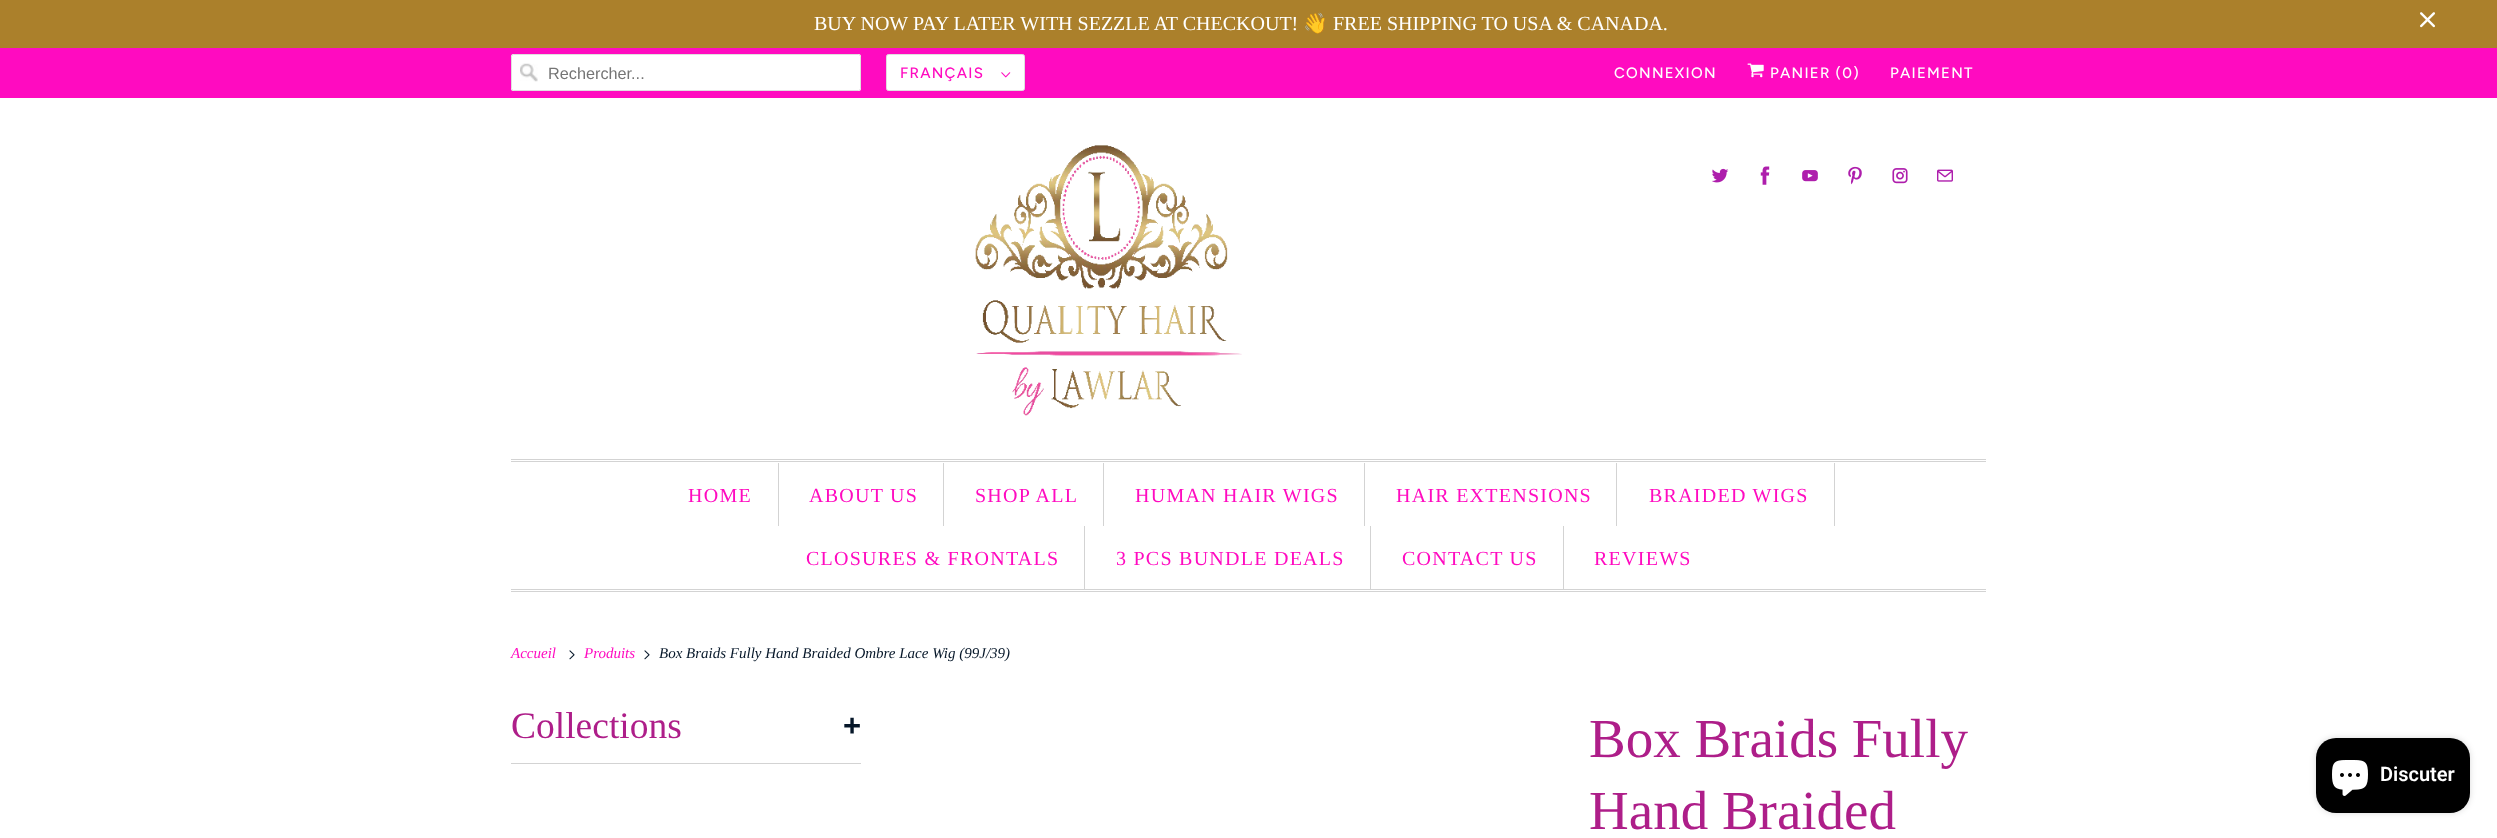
<svg xmlns="http://www.w3.org/2000/svg" xmlns:xlink="http://www.w3.org/1999/xlink" width="2497" height="838" viewBox="0 0 2497 838">
<style>
.cls-1{font:20px Liberation Serif;fill:#ffffff}
.cls-2{font:20px Noto Color Emoji;fill:#ffffff}
.cls-3{font:16.25px Liberation Sans;fill:#757575}
.cls-4{font:500 15px Figtree;letter-spacing:1.25px;fill:#ff0bc0}
.cls-5{font:500 15px Figtree;letter-spacing:1.25px;fill:#ffffff}
.cls-6{font:20px Liberation Serif;letter-spacing:1.25px;fill:#ff0bc0}
.cls-7{font:italic 15px Liberation Serif;fill:#ff0bc0}
.cls-8{font:italic 15px Liberation Serif;fill:#061729}
.cls-9{font:37.5px Liberation Serif;fill:#ae1e89}
.cls-10{font:bold 31px Liberation Sans;fill:#061729}
.cls-11{font:55px Liberation Serif;fill:#ae1e89}
.cls-12{font:600 20px Roboto;fill:#ffffff}
</style>
<rect width="100%" height="100%" fill="#ffffff"/>
<rect fill="#ab802b" x="0" y="0" width="2497" height="48"/>
<image xlink:href="image0.png" x="2420" y="12" width="15" height="16"/>
<rect fill="#ff0bc0" x="0" y="48" width="2497" height="50"/>
<rect fill="#ffffff" x="511" y="54" width="350" height="37" rx="2.5"/>
<image xlink:href="image1.png" x="520" y="63" width="18" height="19"/>
<rect fill="none" stroke="#dfdfdf" x="511.5" y="54.5" width="349" height="36" rx="2"/>
<rect fill="#ffffff" stroke="#dfdfdf" x="886.5" y="54.5" width="138" height="36" rx="2"/>
<image xlink:href="image2.png" x="1001" y="72" width="10" height="6"/>
<image xlink:href="image3.png" x="1747" y="63" width="17" height="15"/>
<image xlink:href="image4.png" x="975" y="145" width="267" height="271"/>
<image xlink:href="image5.png" x="1712" y="168" width="17" height="15"/>
<image xlink:href="image6.png" x="1760" y="166" width="10" height="19"/>
<image xlink:href="image7.png" x="1802" y="170" width="16" height="12"/>
<image xlink:href="image8.png" x="1848" y="166" width="14" height="19"/>
<image xlink:href="image9.png" x="1892" y="168" width="16" height="16"/>
<image xlink:href="image10.png" x="1937" y="169" width="16" height="13"/>
<rect fill="#d3d3d3" x="511" y="459" width="1475" height="1"/>
<rect fill="#d3d3d3" x="511" y="461" width="1475" height="1"/>
<rect fill="#d3d3d3" x="511" y="589" width="1475" height="1"/>
<rect fill="#d3d3d3" x="511" y="591" width="1475" height="1"/>
<rect fill="#d3d3d3" x="778" y="463" width="1" height="63"/>
<rect fill="#d3d3d3" x="943" y="463" width="1" height="63"/>
<rect fill="#d3d3d3" x="1103" y="463" width="1" height="63"/>
<rect fill="#d3d3d3" x="1364" y="463" width="1" height="63"/>
<rect fill="#d3d3d3" x="1616" y="463" width="1" height="63"/>
<rect fill="#d3d3d3" x="1834" y="463" width="1" height="63"/>
<rect fill="#d3d3d3" x="1084" y="526" width="1" height="63"/>
<rect fill="#d3d3d3" x="1370" y="526" width="1" height="63"/>
<rect fill="#d3d3d3" x="1563" y="526" width="1" height="63"/>
<image xlink:href="image11.png" x="569" y="650" width="6" height="10"/>
<image xlink:href="image11.png" x="644" y="650" width="6" height="10"/>
<rect fill="#d3d3d3" x="511" y="763" width="350" height="1"/>
<rect fill="#000000" fill-opacity="0.15" filter="blur(3px)" x="2316" y="738" width="154" height="75" rx="20"/>
<rect fill="#000000" x="2316" y="738" width="154" height="75" rx="20"/>
<image xlink:href="image12.png" x="2332" y="760" width="36" height="36"/>
<text class="cls-1" x="814" y="30">BUY NOW PAY LATER WITH SEZZLE AT CHECKOUT!</text>
<text class="cls-2" x="1303" y="30">👋</text>
<text class="cls-1" x="1333" y="30">FREE SHIPPING TO USA &amp; CANADA.</text>
<text class="cls-3" x="548" y="79">Rechercher...</text>
<text class="cls-4" x="900" y="78">FRANÇAIS</text>
<text class="cls-5" x="1614" y="78">CONNEXION</text>
<text class="cls-5" x="1770" y="78">PANIER (0)</text>
<text class="cls-5" x="1890" y="78">PAIEMENT</text>
<text class="cls-6" x="688" y="502">HOME</text>
<text class="cls-6" x="809" y="502">ABOUT US</text>
<text class="cls-6" x="975" y="502">SHOP ALL</text>
<text class="cls-6" x="1135" y="502">HUMAN HAIR WIGS</text>
<text class="cls-6" x="1396" y="502">HAIR EXTENSIONS</text>
<text class="cls-6" x="1649" y="502">BRAIDED WIGS</text>
<text class="cls-6" x="806" y="565">CLOSURES &amp; FRONTALS</text>
<text class="cls-6" x="1116" y="565">3 PCS BUNDLE DEALS</text>
<text class="cls-6" x="1402" y="565">CONTACT US</text>
<text class="cls-6" x="1594" y="565">REVIEWS</text>
<text class="cls-7" x="511" y="658">Accueil</text>
<text class="cls-7" x="584" y="658">Produits</text>
<text class="cls-8" x="659" y="658">Box Braids Fully Hand Braided Ombre Lace Wig (99J/39)</text>
<text class="cls-9" x="511" y="738">Collections</text>
<text class="cls-10" x="843" y="736">+</text>
<text class="cls-11"><tspan x="1589" y="757">Box Braids Fully</tspan><tspan x="1589" y="829">Hand Braided</tspan></text>
<text class="cls-12" x="2380" y="781">Discuter</text>
</svg>
